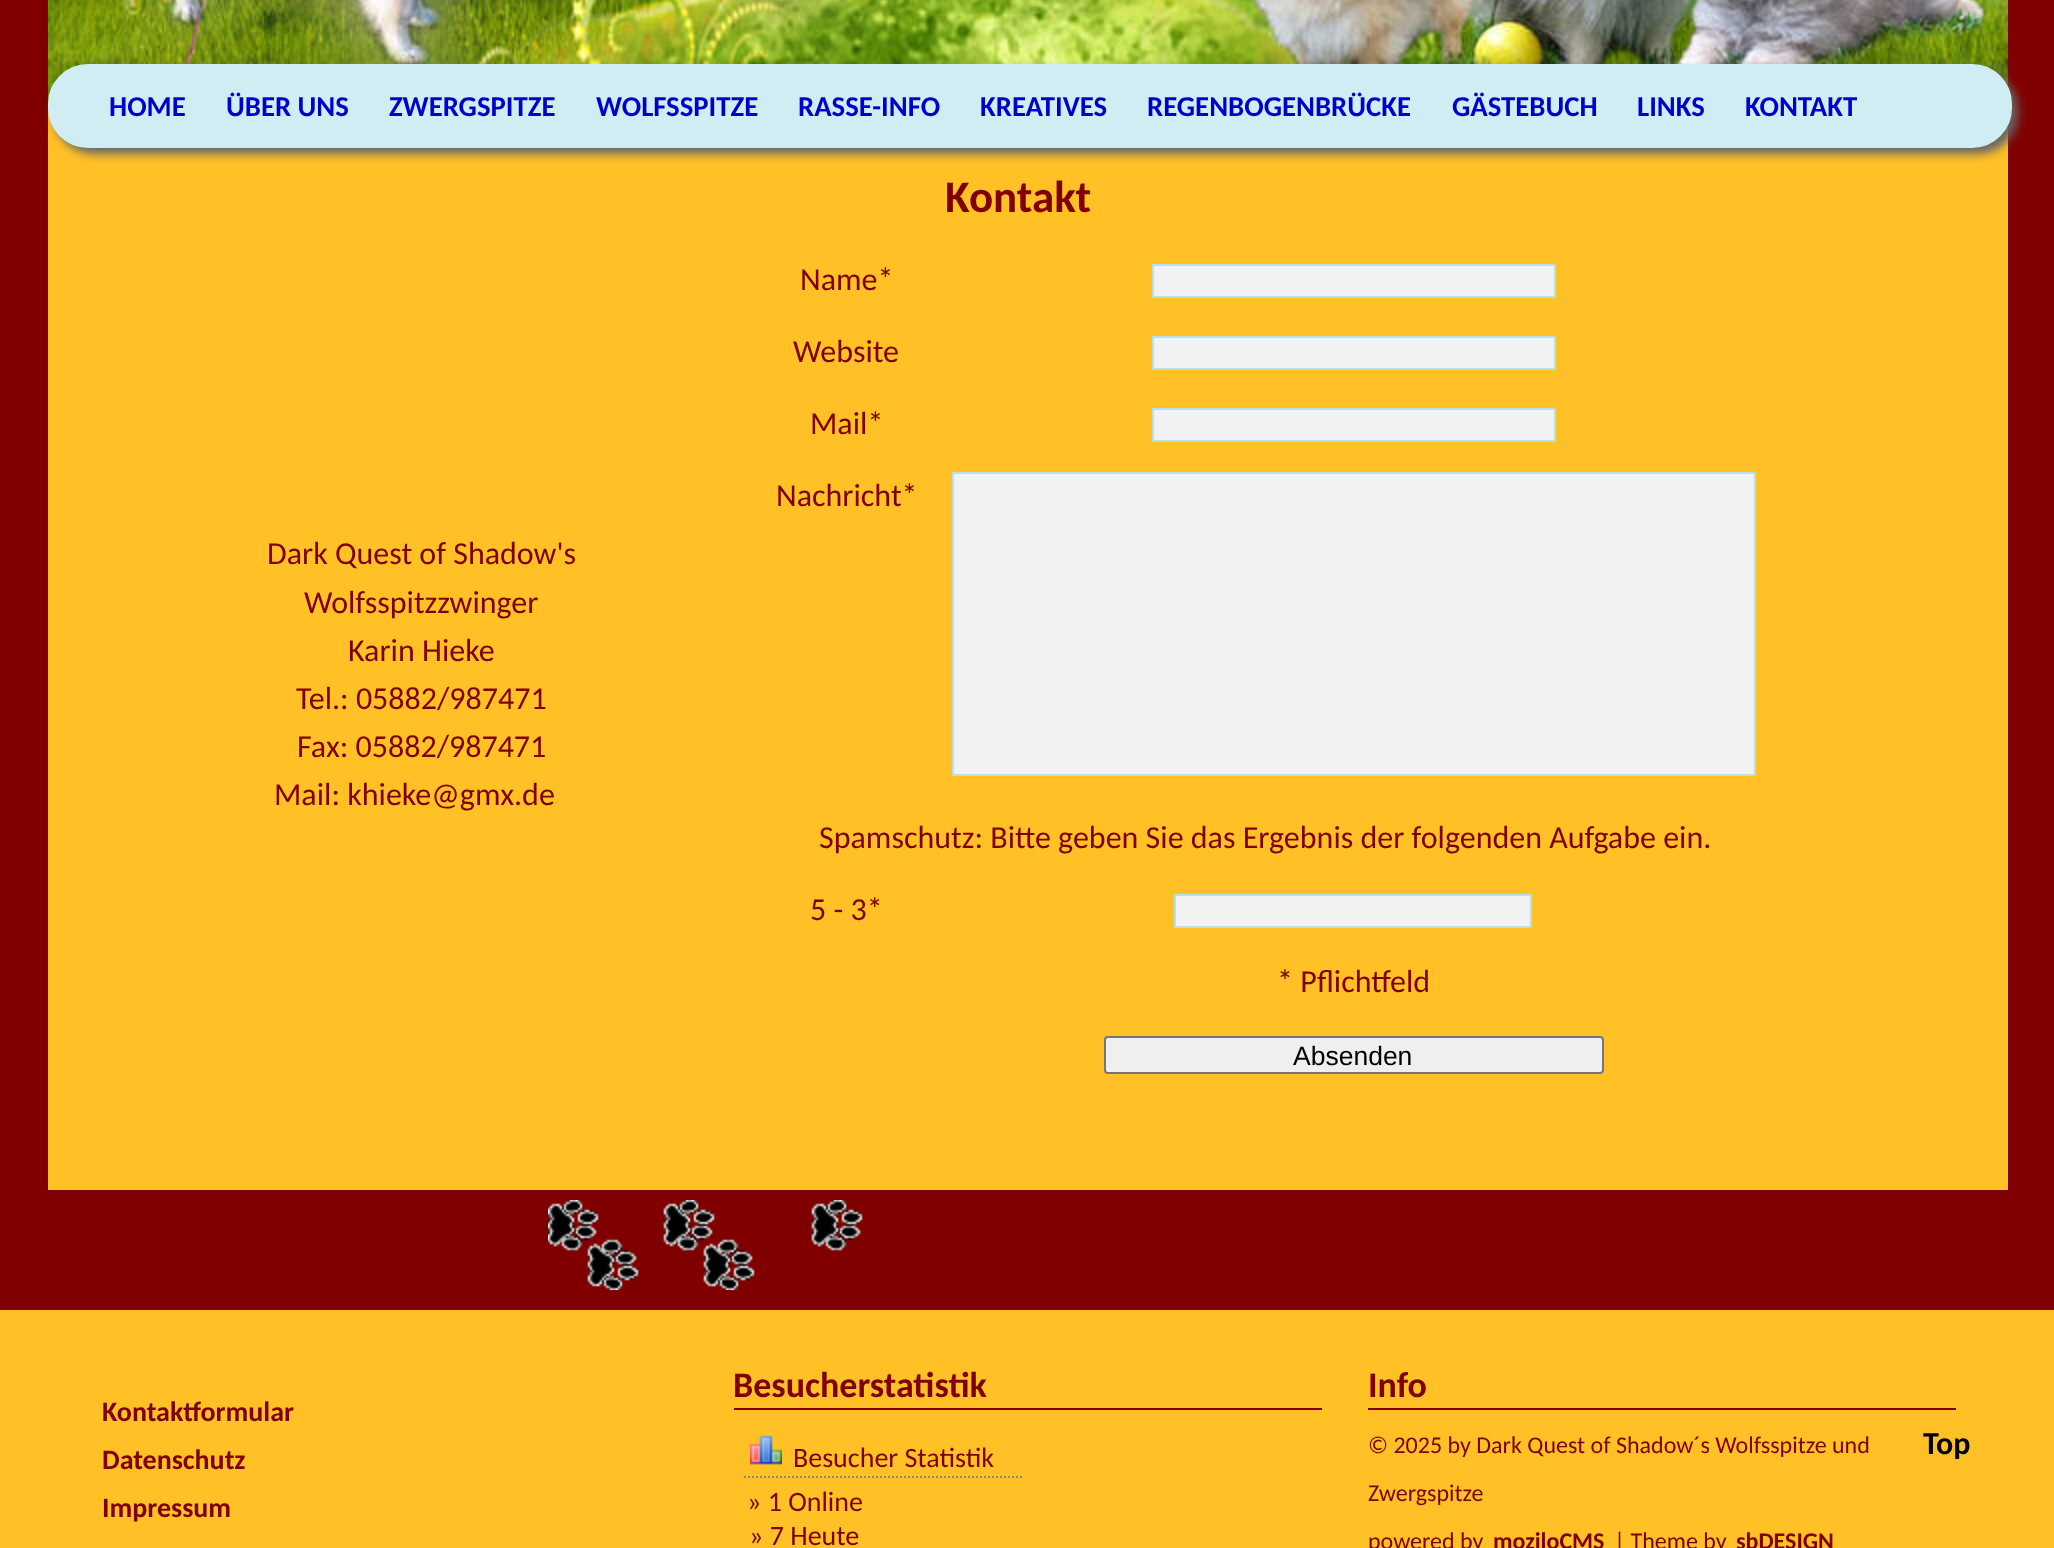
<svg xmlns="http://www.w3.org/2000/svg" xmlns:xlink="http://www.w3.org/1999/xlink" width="2054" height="1548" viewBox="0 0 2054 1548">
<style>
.cls-1{font:bold 28.75px Carlito;fill:#0000cc}
.cls-2{font:bold 45px Carlito;fill:#800000}
.cls-3{font:32px Carlito;fill:#800000}
.cls-4{font:26.5px Liberation Sans;fill:#000000}
.cls-5{font:bold 28px Carlito;fill:#800000}
.cls-6{font:bold 36px Carlito;fill:#800000}
.cls-7{font:28px Carlito;fill:#800000}
.cls-8{font:24px Carlito;fill:#800000}
.cls-9{font:bold 24px Carlito;fill:#800000}
.cls-10{font:bold 32px Carlito;fill:#000000}
</style>
<rect width="100%" height="100%" fill="#800000"/>
<rect fill="#ffc125" x="48" y="108" width="1960" height="1082"/>
<image xlink:href="image0.png" x="48" y="0" width="1960" height="104"/>
<rect fill="#666666" filter="blur(5px)" x="54" y="70" width="1964" height="84" rx="40"/>
<rect fill="#cfedf2" stroke="#cfedf2" stroke-width="2" x="49" y="65" width="1962" height="82" rx="39"/>
<rect fill="#f2f2f2" stroke="#b8e0e7" stroke-width="2" x="1153" y="265" width="402" height="32"/>
<rect fill="#f2f2f2" stroke="#b8e0e7" stroke-width="2" x="1153" y="337" width="402" height="32"/>
<rect fill="#f2f2f2" stroke="#b8e0e7" stroke-width="2" x="1153" y="409" width="402" height="32"/>
<rect fill="#f2f2f2" stroke="#b8e0e7" stroke-width="2" x="953" y="473" width="802" height="302"/>
<rect fill="#f2f2f2" stroke="#b8e0e7" stroke-width="2" x="1175" y="895" width="356" height="32"/>
<rect fill="#efefef" stroke="#767676" stroke-width="2" x="1105" y="1037" width="498" height="36" rx="3"/>
<image xlink:href="image1.png" x="548" y="1200" width="315" height="90"/>
<rect fill="#ffc125" x="0" y="1310" width="2054" height="238"/>
<rect fill="#800000" x="734" y="1408" width="588" height="2"/>
<image xlink:href="image2.png" x="750" y="1435" width="32" height="30"/>
<path fill="none" stroke="#888888" stroke-width="2" stroke-dasharray="2 2" d="M744 1477H1024"/>
<rect fill="#800000" x="1368" y="1408" width="588" height="2"/>
<text class="cls-1" x="109" y="116">HOME</text>
<text class="cls-1" x="226" y="116">ÜBER UNS</text>
<text class="cls-1" x="389" y="116">ZWERGSPITZE</text>
<text class="cls-1" x="596" y="116">WOLFSSPITZE</text>
<text class="cls-1" x="798" y="116">RASSE-INFO</text>
<text class="cls-1" x="980" y="116">KREATIVES</text>
<text class="cls-1" x="1147" y="116">REGENBOGENBRÜCKE</text>
<text class="cls-1" x="1452" y="116">GÄSTEBUCH</text>
<text class="cls-1" x="1637" y="116">LINKS</text>
<text class="cls-1" x="1745" y="116">KONTAKT</text>
<text class="cls-2" x="945" y="212">Kontakt</text>
<text class="cls-3" x="267" y="564">Dark Quest of Shadow's</text>
<text class="cls-3" x="304" y="613">Wolfsspitzzwinger</text>
<text class="cls-3" x="348" y="661">Karin Hieke</text>
<text class="cls-3" x="296" y="709">Tel.: 05882/987471</text>
<text class="cls-3" x="297" y="757">Fax: 05882/987471</text>
<text class="cls-3" x="274" y="805">Mail: khieke@gmx.de</text>
<text class="cls-3" x="800" y="290">Name*</text>
<text class="cls-3" x="793" y="362">Website</text>
<text class="cls-3" x="810" y="434">Mail*</text>
<text class="cls-3" x="776" y="506">Nachricht*</text>
<text class="cls-3" x="819" y="848">Spamschutz: Bitte geben Sie das Ergebnis der folgenden Aufgabe ein.</text>
<text class="cls-3" x="810" y="920">5 - 3*</text>
<text class="cls-3" x="1277" y="992">* Pflichtfeld</text>
<text class="cls-4" x="1293" y="1065">Absenden</text>
<text class="cls-5"><tspan x="102" y="1421">Kontaktformular</tspan><tspan x="102" y="1469">Datenschutz</tspan><tspan x="102" y="1517">Impressum</tspan></text>
<text class="cls-6" x="733" y="1397">Besucherstatistik</text>
<text class="cls-7" x="793" y="1467">Besucher Statistik</text>
<text class="cls-7" x="747" y="1511">» 1 Online</text>
<text class="cls-7" x="749" y="1545">» 7 Heute</text>
<text class="cls-6" x="1368" y="1397">Info</text>
<text class="cls-8" x="1368" y="1453">© 2025 by Dark Quest of Shadow´s Wolfsspitze und</text>
<text class="cls-8" x="1368" y="1501">Zwergspitze</text>
<text class="cls-8" x="1368" y="1549">powered by</text>
<text class="cls-9" x="1493" y="1549">moziloCMS</text>
<text class="cls-8" x="1614" y="1549">| Theme by</text>
<text class="cls-9" x="1736" y="1549">sbDESIGN</text>
<text class="cls-10" x="1923" y="1454">Top</text>
</svg>
